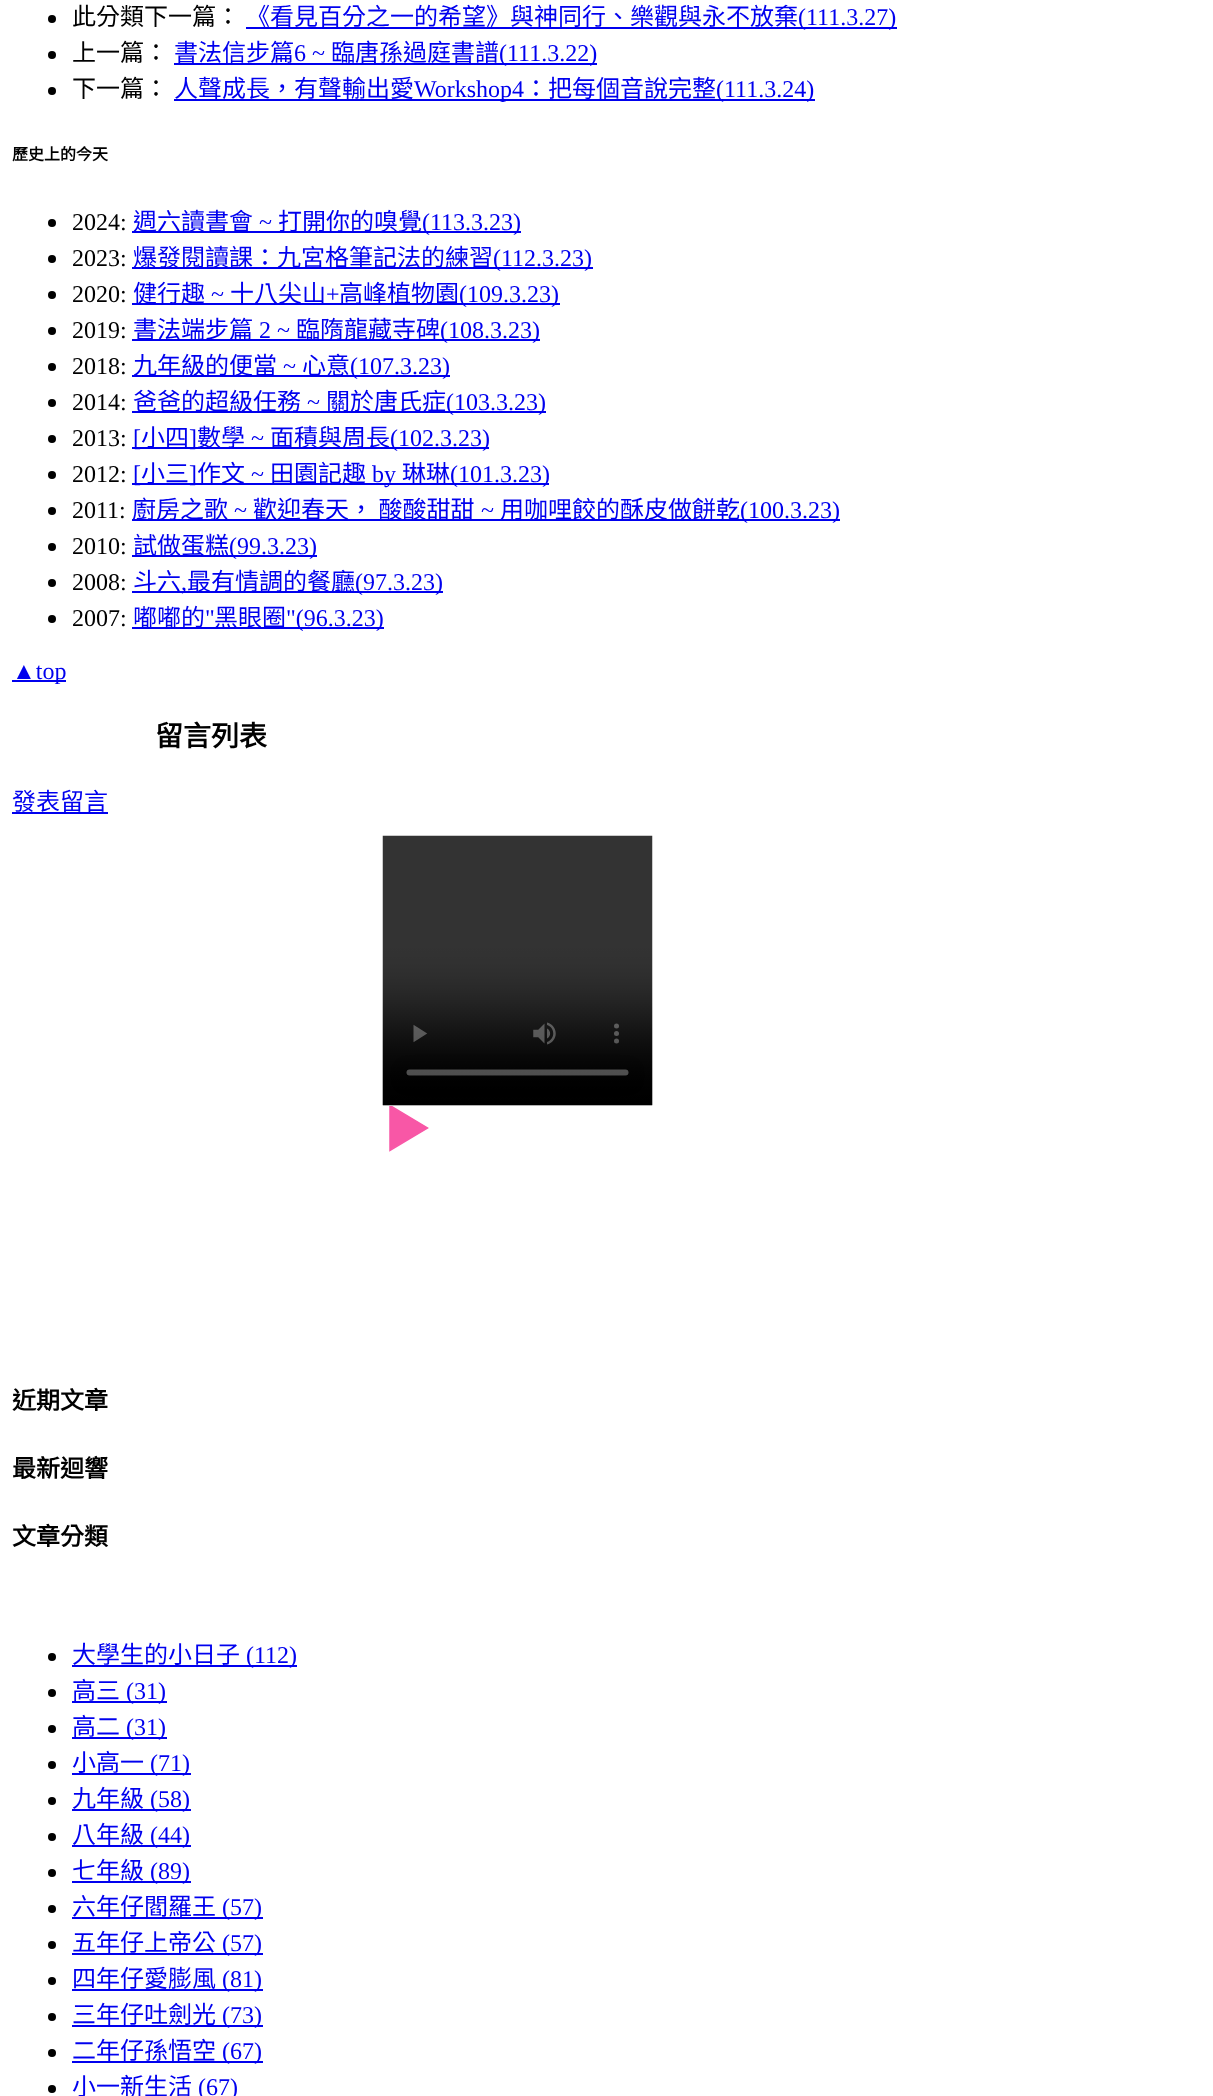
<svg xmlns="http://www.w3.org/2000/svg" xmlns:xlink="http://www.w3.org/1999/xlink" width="1213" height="2096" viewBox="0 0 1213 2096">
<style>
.cls-1{font:24px Noto Sans CJK TC;fill:#000000}
.cls-2{font:24px Noto Sans CJK TC;fill:#0000ee}
.cls-3{font:24px Liberation Serif;fill:#0000ee}
.cls-4{font:bold 16px Noto Sans CJK TC;fill:#000000}
.cls-5{font:24px Liberation Serif;fill:#000000}
.cls-6{font:bold 28px Noto Sans CJK TC;fill:#000000}
.cls-7{font:bold 24px Noto Sans CJK TC;fill:#000000}
</style>
<defs>
<clipPath id="clip1"><rect x="383" y="1106" width="450" height="225"/></clipPath>
</defs>
<rect width="100%" height="100%" fill="#ffffff"/>
<circle fill="#000000" cx="52" cy="19" r="4"/>
<rect fill="#0000ee" x="246" y="27" width="651" height="2"/>
<circle fill="#000000" cx="52" cy="55" r="4"/>
<rect fill="#0000ee" x="174" y="63" width="423" height="2"/>
<circle fill="#000000" cx="52" cy="91" r="4"/>
<rect fill="#0000ee" x="174" y="99" width="641" height="2"/>
<circle fill="#000000" cx="52" cy="223" r="4"/>
<rect fill="#0000ee" x="132" y="231" width="389" height="2"/>
<circle fill="#000000" cx="52" cy="259" r="4"/>
<rect fill="#0000ee" x="132" y="267" width="461" height="2"/>
<circle fill="#000000" cx="52" cy="295" r="4"/>
<rect fill="#0000ee" x="132" y="303" width="428" height="2"/>
<circle fill="#000000" cx="52" cy="331" r="4"/>
<rect fill="#0000ee" x="132" y="339" width="408" height="2"/>
<circle fill="#000000" cx="52" cy="367" r="4"/>
<rect fill="#0000ee" x="132" y="375" width="318" height="2"/>
<circle fill="#000000" cx="52" cy="403" r="4"/>
<rect fill="#0000ee" x="132" y="411" width="414" height="2"/>
<circle fill="#000000" cx="52" cy="439" r="4"/>
<rect fill="#0000ee" x="132" y="447" width="357" height="2"/>
<circle fill="#000000" cx="52" cy="475" r="4"/>
<rect fill="#0000ee" x="132" y="483" width="417" height="2"/>
<circle fill="#000000" cx="52" cy="511" r="4"/>
<rect fill="#0000ee" x="132" y="519" width="708" height="2"/>
<circle fill="#000000" cx="52" cy="547" r="4"/>
<rect fill="#0000ee" x="132" y="555" width="185" height="2"/>
<circle fill="#000000" cx="52" cy="583" r="4"/>
<rect fill="#0000ee" x="132" y="591" width="311" height="2"/>
<rect fill="#0000ee" x="132" y="627" width="252" height="2"/>
<circle fill="#000000" cx="52" cy="619" r="4"/>
<rect fill="#0000ee" x="12" y="680" width="54" height="2"/>
<rect fill="#0000ee" x="12" y="812" width="96" height="2"/>
<image xlink:href="image0.png" x="382" y="835" width="271" height="271"/>
<path fill="#f857a6" d="M390 1106L428 1128L390 1150Z"/>
<g clip-path="url(#clip1)">
<path fill="none" stroke="#f857a6" stroke-width="1.5" d="M390 1105.5L427.5 1128L390 1150.5Z"/>
</g>
<circle fill="#000000" cx="52" cy="1657" r="4"/>
<rect fill="#0000ee" x="72" y="1665" width="225" height="2"/>
<circle fill="#000000" cx="52" cy="1693" r="4"/>
<rect fill="#0000ee" x="72" y="1701" width="95" height="2"/>
<circle fill="#000000" cx="52" cy="1729" r="4"/>
<rect fill="#0000ee" x="72" y="1737" width="95" height="2"/>
<circle fill="#000000" cx="52" cy="1765" r="4"/>
<rect fill="#0000ee" x="72" y="1773" width="119" height="2"/>
<circle fill="#000000" cx="52" cy="1801" r="4"/>
<rect fill="#0000ee" x="72" y="1809" width="119" height="2"/>
<circle fill="#000000" cx="52" cy="1837" r="4"/>
<rect fill="#0000ee" x="72" y="1845" width="119" height="2"/>
<circle fill="#000000" cx="52" cy="1873" r="4"/>
<rect fill="#0000ee" x="72" y="1881" width="119" height="2"/>
<circle fill="#000000" cx="52" cy="1909" r="4"/>
<rect fill="#0000ee" x="72" y="1917" width="191" height="2"/>
<circle fill="#000000" cx="52" cy="1945" r="4"/>
<rect fill="#0000ee" x="72" y="1953" width="191" height="2"/>
<circle fill="#000000" cx="52" cy="1981" r="4"/>
<rect fill="#0000ee" x="72" y="1989" width="191" height="2"/>
<circle fill="#000000" cx="52" cy="2017" r="4"/>
<rect fill="#0000ee" x="72" y="2025" width="191" height="2"/>
<circle fill="#000000" cx="52" cy="2053" r="4"/>
<rect fill="#0000ee" x="72" y="2061" width="191" height="2"/>
<circle fill="#000000" cx="52" cy="2089" r="4"/>
<text class="cls-1" x="72" y="25">此分類下一篇：</text>
<text class="cls-2" x="246" y="25">《看見百分之一的希望》與神同行、樂觀與永不放棄</text>
<text class="cls-3" x="798" y="25">(111.3.27)</text>
<text class="cls-1" x="72" y="61">上一篇：</text>
<text class="cls-2" x="174" y="61">書法信步篇</text>
<text class="cls-3" x="294" y="61">6 ~</text>
<text class="cls-2" x="331" y="61">臨唐孫過庭書譜</text>
<text class="cls-3" x="499" y="61">(111.3.22)</text>
<text class="cls-1" x="72" y="97">下一篇：</text>
<text class="cls-2" x="174" y="97">人聲成長，有聲輸出愛</text>
<text class="cls-3" x="414" y="97">Workshop4</text>
<text class="cls-2" x="524" y="97">：把每個音說完整</text>
<text class="cls-3" x="716" y="97">(111.3.24)</text>
<text class="cls-4" x="12" y="160">歷史上的今天</text>
<text class="cls-5" x="72" y="230">2024:</text>
<text class="cls-2" x="133" y="230">週六讀書會</text>
<text class="cls-3" x="259" y="230">~</text>
<text class="cls-2" x="278" y="230">打開你的嗅覺</text>
<text class="cls-3" x="422" y="230">(113.3.23)</text>
<text class="cls-5" x="72" y="266">2023:</text>
<text class="cls-2" x="133" y="266">爆發閱讀課：九宮格筆記法的練習</text>
<text class="cls-3" x="493" y="266">(112.3.23)</text>
<text class="cls-5" x="72" y="302">2020:</text>
<text class="cls-2" x="133" y="302">健行趣</text>
<text class="cls-3" x="211" y="302">~</text>
<text class="cls-2" x="230" y="302">十八尖山</text>
<text class="cls-3" x="326" y="302">+</text>
<text class="cls-2" x="339" y="302">高峰植物園</text>
<text class="cls-3" x="459" y="302">(109.3.23)</text>
<text class="cls-5" x="72" y="338">2019:</text>
<text class="cls-2" x="133" y="338">書法端步篇</text>
<text class="cls-3" x="259" y="338">2 ~</text>
<text class="cls-2" x="296" y="338">臨隋龍藏寺碑</text>
<text class="cls-3" x="440" y="338">(108.3.23)</text>
<text class="cls-5" x="72" y="374">2018:</text>
<text class="cls-2" x="133" y="374">九年級的便當</text>
<text class="cls-3" x="283" y="374">~</text>
<text class="cls-2" x="302" y="374">心意</text>
<text class="cls-3" x="350" y="374">(107.3.23)</text>
<text class="cls-5" x="72" y="410">2014:</text>
<text class="cls-2" x="133" y="410">爸爸的超級任務</text>
<text class="cls-3" x="307" y="410">~</text>
<text class="cls-2" x="326" y="410">關於唐氏症</text>
<text class="cls-3" x="446" y="410">(103.3.23)</text>
<text class="cls-5" x="72" y="446">2013:</text>
<text class="cls-3" x="133" y="446">[</text>
<text class="cls-2" x="141" y="446">小四</text>
<text class="cls-3" x="189" y="446">]</text>
<text class="cls-2" x="197" y="446">數學</text>
<text class="cls-3" x="251" y="446">~</text>
<text class="cls-2" x="270" y="446">面積與周長</text>
<text class="cls-3" x="390" y="446">(102.3.23)</text>
<text class="cls-5" x="72" y="482">2012:</text>
<text class="cls-3" x="133" y="482">[</text>
<text class="cls-2" x="141" y="482">小三</text>
<text class="cls-3" x="189" y="482">]</text>
<text class="cls-2" x="197" y="482">作文</text>
<text class="cls-3" x="251" y="482">~</text>
<text class="cls-2" x="270" y="482">田園記趣</text>
<text class="cls-3" x="372" y="482">by</text>
<text class="cls-2" x="402" y="482">琳琳</text>
<text class="cls-3" x="450" y="482">(101.3.23)</text>
<text class="cls-5" x="72" y="518">2011:</text>
<text class="cls-2" x="132" y="518">廚房之歌</text>
<text class="cls-3" x="234" y="518">~</text>
<text class="cls-2" x="253" y="518">歡迎春天， 酸酸甜甜</text>
<text class="cls-3" x="481" y="518">~</text>
<text class="cls-2" x="500" y="518">用咖哩餃的酥皮做餅乾</text>
<text class="cls-3" x="740" y="518">(100.3.23)</text>
<text class="cls-5" x="72" y="554">2010:</text>
<text class="cls-2" x="133" y="554">試做蛋糕</text>
<text class="cls-3" x="229" y="554">(99.3.23)</text>
<text class="cls-5" x="72" y="590">2008:</text>
<text class="cls-2" x="133" y="590">斗六</text>
<text class="cls-2" x="187" y="590">最有情調的餐廳</text>
<text class="cls-3" x="355" y="590">(97.3.23)</text>
<text class="cls-3" x="181" y="590">,</text>
<text class="cls-5" x="72" y="626">2007:</text>
<text class="cls-2" x="133" y="626">嘟嘟的</text>
<text class="cls-3" x="205" y="626">"</text>
<text class="cls-2" x="214" y="626">黑眼圈</text>
<text class="cls-3" x="286" y="626">"(96.3.23)</text>
<text class="cls-3" x="12" y="679">▲top</text>
<text class="cls-6" x="155" y="746">留言列表</text>
<text class="cls-2" x="12" y="810">發表留言</text>
<text class="cls-7" x="12" y="1409">近期文章</text>
<text class="cls-7" x="12" y="1477">最新迴響</text>
<text class="cls-7" x="12" y="1545">文章分類</text>
<text class="cls-2" x="72" y="1663">大學生的小日子</text>
<text class="cls-3" x="246" y="1663">(112)</text>
<text class="cls-2" x="72" y="1699">高三</text>
<text class="cls-3" x="126" y="1699">(31)</text>
<text class="cls-2" x="72" y="1735">高二</text>
<text class="cls-3" x="126" y="1735">(31)</text>
<text class="cls-2" x="72" y="1771">小高一</text>
<text class="cls-3" x="150" y="1771">(71)</text>
<text class="cls-2" x="72" y="1807">九年級</text>
<text class="cls-3" x="150" y="1807">(58)</text>
<text class="cls-2" x="72" y="1843">八年級</text>
<text class="cls-3" x="150" y="1843">(44)</text>
<text class="cls-2" x="72" y="1879">七年級</text>
<text class="cls-3" x="150" y="1879">(89)</text>
<text class="cls-2" x="72" y="1915">六年仔閻羅王</text>
<text class="cls-3" x="222" y="1915">(57)</text>
<text class="cls-2" x="72" y="1951">五年仔上帝公</text>
<text class="cls-3" x="222" y="1951">(57)</text>
<text class="cls-2" x="72" y="1987">四年仔愛膨風</text>
<text class="cls-3" x="222" y="1987">(81)</text>
<text class="cls-2" x="72" y="2023">三年仔吐劍光</text>
<text class="cls-3" x="222" y="2023">(73)</text>
<text class="cls-2" x="72" y="2059">二年仔孫悟空</text>
<text class="cls-3" x="222" y="2059">(67)</text>
<text class="cls-2" x="72" y="2095">小一新生活</text>
<text class="cls-3" x="198" y="2095">(67)</text>
</svg>
